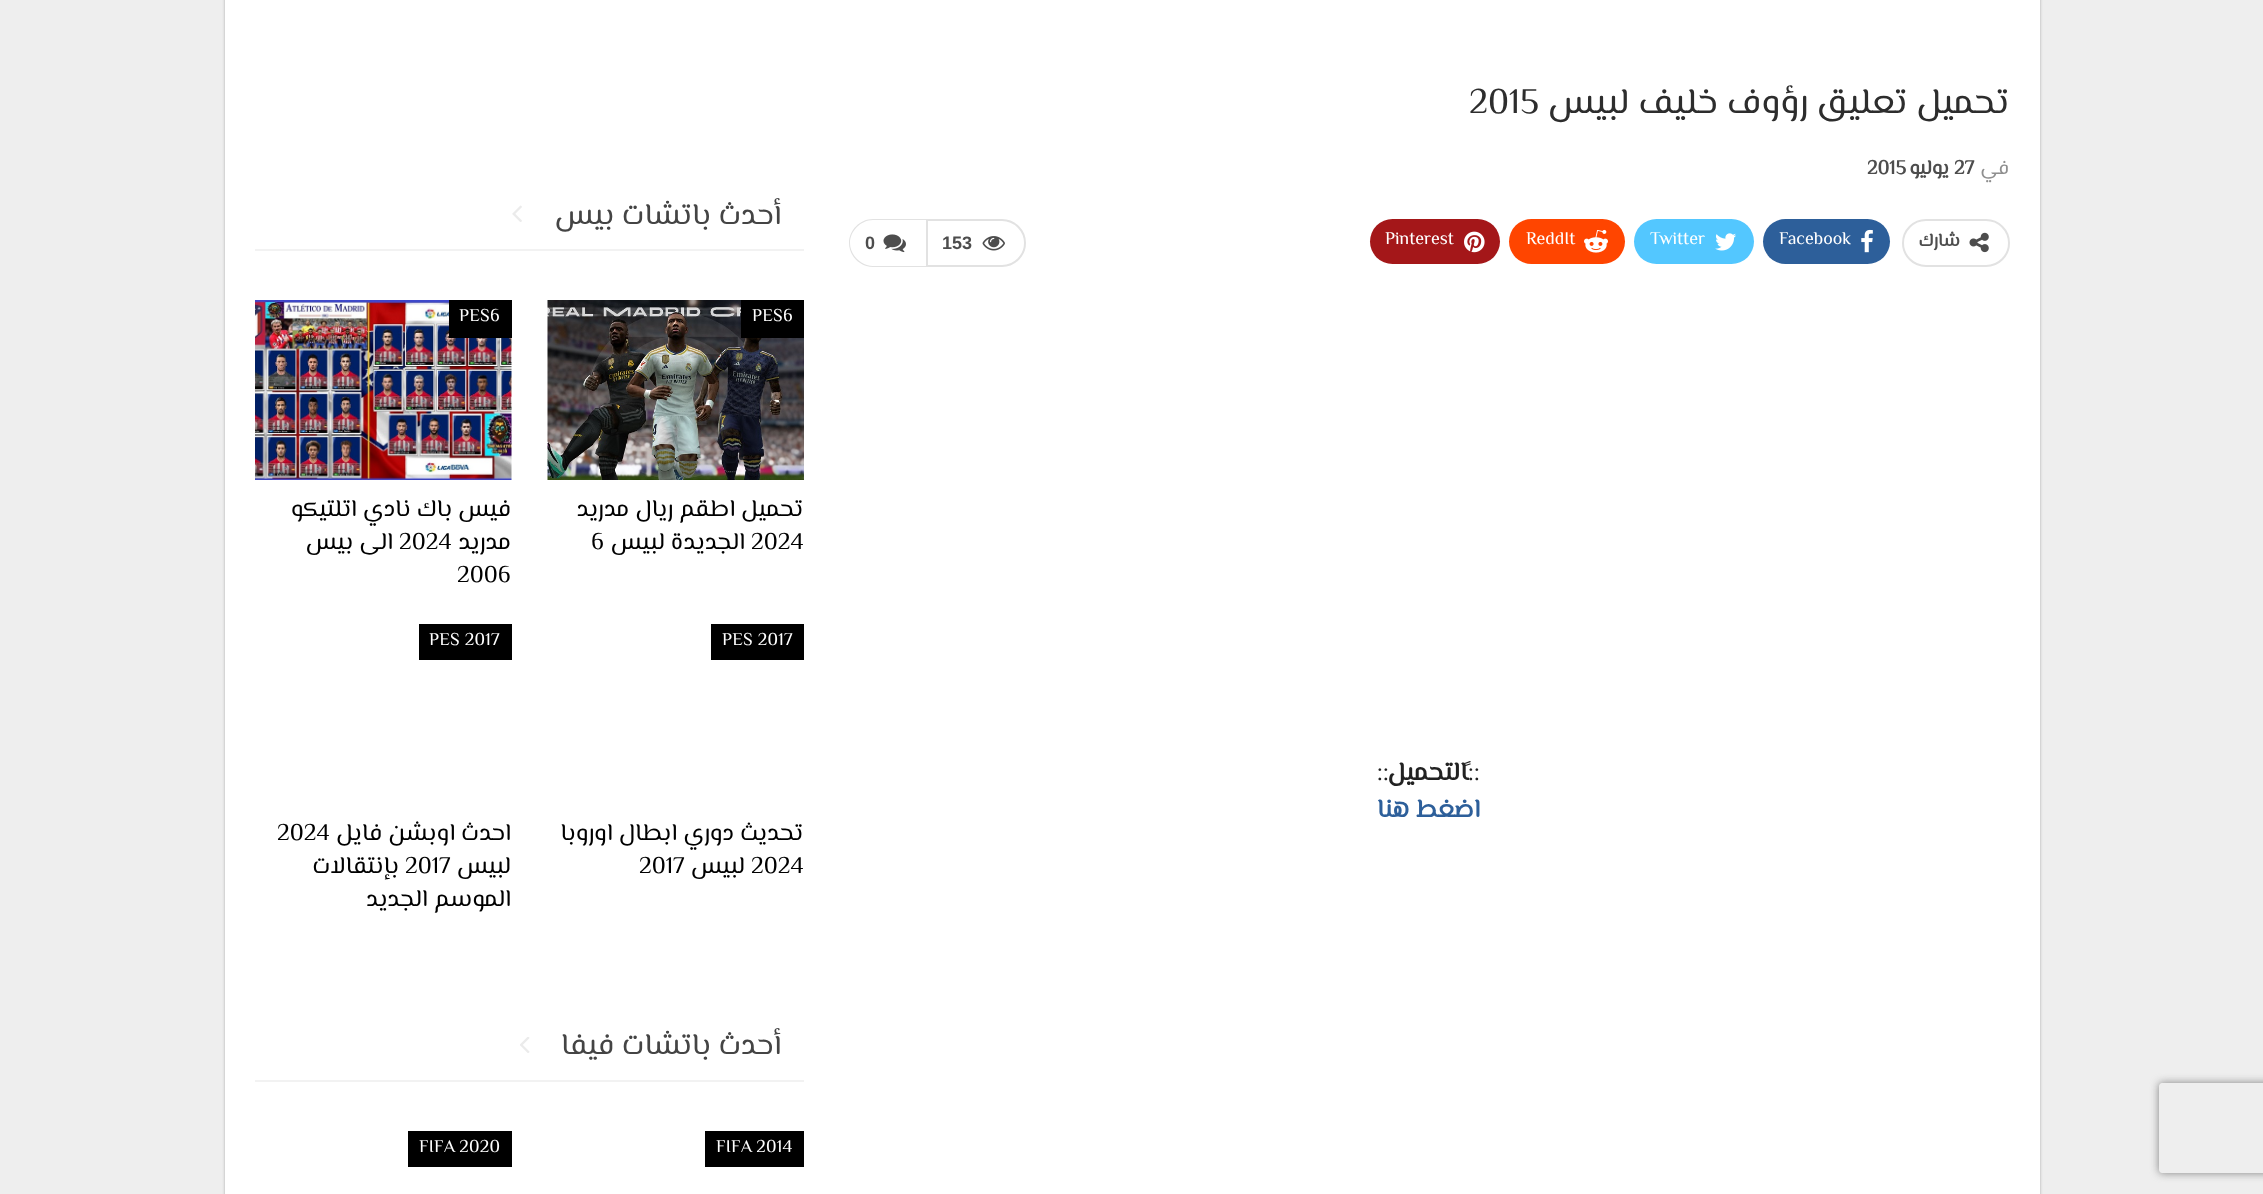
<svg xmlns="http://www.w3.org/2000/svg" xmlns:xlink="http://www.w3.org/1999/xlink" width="2263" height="1194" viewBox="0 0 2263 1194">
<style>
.cls-1{font:36px 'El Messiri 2';direction:rtl;fill:#2d2d2d}
.cls-2{font:36px 'El Messiri 2';fill:#2d2d2d}
.cls-3{font:20px 'El Messiri 2';direction:rtl;fill:#8f8f8f}
.cls-4{font:bold 20px El Messiri;fill:#4d4d4d}
.cls-5{font:bold 20px El Messiri;direction:rtl;fill:#4d4d4d}
.cls-6{font:bold 18px El Messiri;direction:rtl;fill:#4d4d4d}
.cls-7{font:18px 'El Messiri 2';fill:#ffffff}
.cls-8{font:bold 18px Liberation Sans;fill:#4d4d4d}
.cls-9{font:25.5px El Messiri;direction:rtl;fill:#222222}
.cls-10{font:bold 25.5px El Messiri;direction:rtl;fill:#222222}
.cls-11{font:bold 25.5px El Messiri;direction:rtl;fill:#2d5f9a}
.cls-12{font:30px 'El Messiri 2';direction:rtl;fill:#444444}
.cls-13{font:18px 'El Messiri 2';letter-spacing:0.25px;fill:#ffffff}
.cls-14{font:24px 'El Messiri 2';direction:rtl;fill:#000000}
.cls-15{font:24px 'El Messiri 2';fill:#000000}
</style>
<defs>
<clipPath id="clip1"><path d="M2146 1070H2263V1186H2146ZM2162 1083H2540C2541.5 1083 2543 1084.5 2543 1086V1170C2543 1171.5 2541.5 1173 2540 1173H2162C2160.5 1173 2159 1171.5 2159 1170V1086C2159 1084.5 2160.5 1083 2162 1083Z" clip-rule="evenodd"/></clipPath>
</defs>
<rect width="100%" height="100%" fill="#eeeeee"/>
<g clip-path="url(#clip1)">
<rect fill="#808080" filter="blur(4px)" x="2159" y="1083" width="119" height="90" rx="3"/>
</g>
<rect fill="#000000" fill-opacity="0.27" filter="blur(1.5px)" x="225" y="-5" width="1815" height="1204"/>
<rect fill="#ffffff" x="225" y="0" width="1815" height="1194"/>
<rect fill="none" stroke="#e2e2e2" stroke-width="2" x="1903" y="220" width="106" height="46" rx="23"/>
<image xlink:href="image0.png" x="1969" y="232" width="20" height="21"/>
<rect fill="#2d5f9a" x="1763" y="219" width="127" height="45" rx="22.5"/>
<image xlink:href="image1.png" x="1861" y="229" width="12" height="24"/>
<rect fill="#53c7ff" x="1634" y="219" width="120" height="45" rx="22.5"/>
<image xlink:href="image2.png" x="1715" y="233" width="21" height="18"/>
<rect fill="#ff4500" x="1509" y="219" width="116" height="45" rx="22.5"/>
<image xlink:href="image3.png" x="1584" y="229" width="24" height="24"/>
<rect fill="#a41719" x="1370" y="219" width="130" height="45" rx="22.5"/>
<image xlink:href="image4.png" x="1464" y="231" width="21" height="22"/>
<path fill="none" stroke="#e2e2e2" stroke-width="2" d="M927 220H1002C1014.5 220 1025 230.5 1025 243C1025 255.5 1014.5 266 1002 266H927Z"/>
<image xlink:href="image5.png" x="982" y="236" width="23" height="15"/>
<path fill="#e2e2e2" fill-rule="evenodd" d="M873 219H926V267H873C860 267 849 256 849 243C849 230 860 219 873 219ZM873 220H926V266H873C861 266 850 255 850 243C850 231 861 220 873 220Z"/>
<image xlink:href="image6.png" x="883" y="234" width="23" height="19"/>
<image xlink:href="image7.png" x="512" y="205" width="10" height="17"/>
<rect fill="#f2f2f2" x="255" y="249" width="549" height="2"/>
<image xlink:href="image8.png" x="547" y="300" width="257" height="180"/>
<rect fill="#000000" x="741" y="300" width="63" height="38"/>
<image xlink:href="image9.png" x="255" y="300" width="257" height="180"/>
<rect fill="#000000" x="449" y="300" width="63" height="38"/>
<rect fill="#000000" x="711" y="624" width="93" height="36"/>
<rect fill="#000000" x="419" y="624" width="93" height="36"/>
<image xlink:href="image10.png" x="520" y="1037" width="10" height="16"/>
<rect fill="#f2f2f2" x="255" y="1080" width="549" height="2"/>
<rect fill="#000000" x="705" y="1131" width="99" height="36"/>
<rect fill="#000000" x="408" y="1131" width="104" height="36"/>
<text class="cls-1" x="2009" y="113">تحميل تعليق رؤوف خليف لبيس</text>
<text class="cls-2" x="1469" y="113">2015</text>
<text class="cls-3" x="2009" y="174">في</text>
<text class="cls-4" x="1954" y="174">27</text>
<text class="cls-5" x="1949" y="174">يوليو</text>
<text class="cls-4" x="1867" y="174">2015</text>
<text class="cls-6" x="1960" y="246">شارك</text>
<text class="cls-7" x="1779" y="244">Facebook</text>
<text class="cls-7" x="1650" y="244">Twitter</text>
<text class="cls-7" x="1526" y="244">ReddIt</text>
<text class="cls-7" x="1385" y="244">Pinterest</text>
<text class="cls-8" x="942" y="249">153</text>
<text class="cls-8" x="865" y="249">0</text>
<text class="cls-9" x="1480" y="780">::ً‍</text>
<text class="cls-10" x="1468" y="780">‍التحميل</text>
<text class="cls-9" x="1389" y="780">::</text>
<text class="cls-11" x="1480" y="817">اضغط هنا</text>
<text class="cls-12" x="781" y="224">أحدث باتشات بيس</text>
<text class="cls-13" x="752" y="321">PES6</text>
<text class="cls-14" x="803" y="516">تحميل اطقم ريال مدريد</text>
<text class="cls-15" x="751" y="549">2024</text>
<text class="cls-14" x="745" y="549">الجديدة لبيس</text>
<text class="cls-15" x="591" y="549">6</text>
<text class="cls-13" x="459" y="321">PES6</text>
<text class="cls-14"><tspan x="511" y="516">فيس باك نادي اتلتيكو</tspan><tspan x="511" y="549">مدريد</tspan></text>
<text class="cls-15" x="399" y="549">2024</text>
<text class="cls-14" x="393" y="549">الى بيس</text>
<text class="cls-15" x="457" y="582">2006</text>
<text class="cls-13" x="722" y="645">PES 2017</text>
<text class="cls-14" x="803" y="840">تحديث دوري ابطال اوروبا</text>
<text class="cls-15" x="751" y="873">2024</text>
<text class="cls-14" x="745" y="873">لبيس</text>
<text class="cls-15" x="639" y="873">2017</text>
<text class="cls-13" x="429" y="645">PES 2017</text>
<text class="cls-14" x="511" y="840">احدث اوبشن فايل</text>
<text class="cls-15" x="277" y="840">2024</text>
<text class="cls-14" x="511" y="873">لبيس</text>
<text class="cls-15" x="405" y="873">2017</text>
<text class="cls-14" x="399" y="873">بإنتقالات</text>
<text class="cls-14" x="511" y="906">الموسم الجديد</text>
<text class="cls-12" x="781" y="1054">أحدث باتشات فيفا</text>
<text class="cls-13" x="716" y="1152" word-spacing="-1">FIFA 2014</text>
<text class="cls-13" x="419" y="1152" word-spacing="-1">FIFA 2020</text>
</svg>
